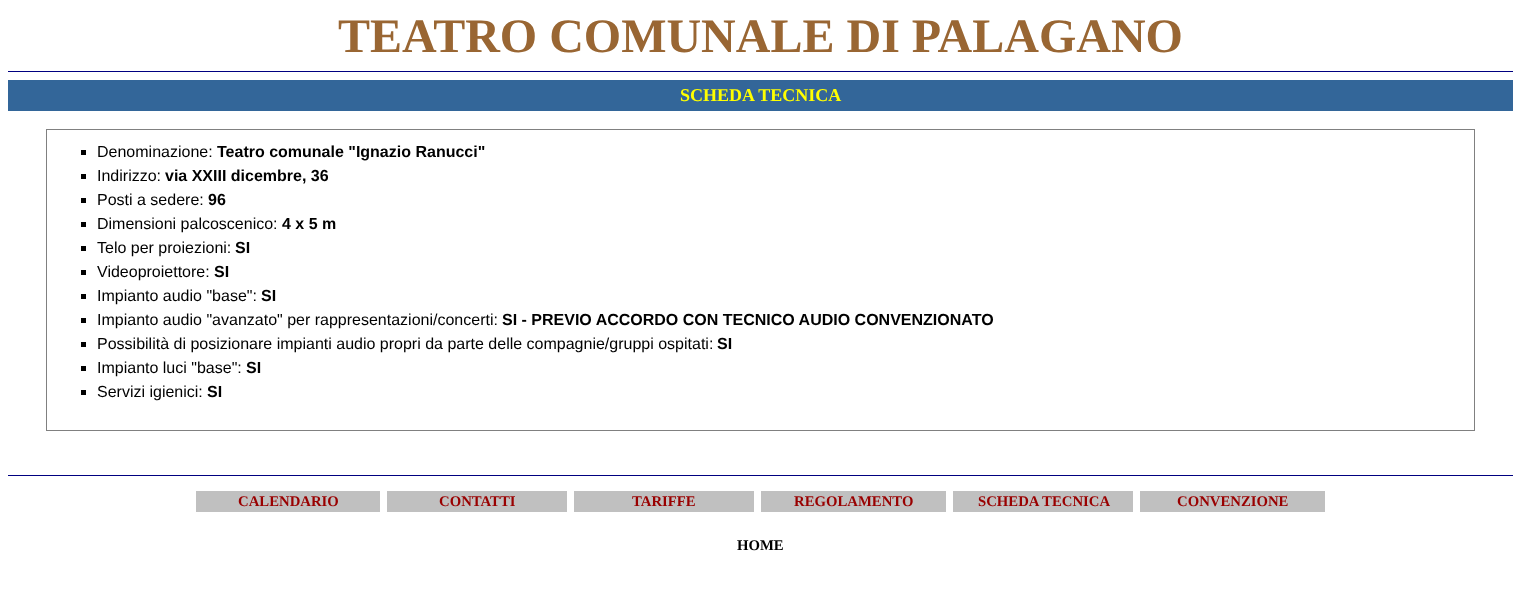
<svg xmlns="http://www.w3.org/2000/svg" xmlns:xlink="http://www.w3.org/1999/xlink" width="1521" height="611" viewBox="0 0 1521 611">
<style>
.cls-1{font:bold 48px Liberation Serif;fill:#996633}
.cls-2{font:bold 18px Liberation Serif;fill:#ffff00}
.cls-3{font:16px Liberation Sans;fill:#000000}
.cls-4{font:bold 16px Liberation Sans;fill:#000000}
.cls-5{font:bold 14.75px Liberation Serif;fill:#990000}
.cls-6{font:bold 14.75px Liberation Serif;fill:#000000}
</style>
<rect width="100%" height="100%" fill="#ffffff"/>
<rect fill="#000080" x="8" y="71" width="1505" height="1"/>
<rect fill="#336699" x="8" y="80" width="1505" height="31"/>
<rect fill="#808080" x="46" y="129" width="1429" height="1"/>
<rect fill="#808080" x="1474" y="129" width="1" height="302"/>
<rect fill="#808080" x="46" y="430" width="1429" height="1"/>
<rect fill="#808080" x="46" y="129" width="1" height="302"/>
<rect fill="#000000" x="81" y="150" width="5" height="5"/>
<rect fill="#000000" x="81" y="174" width="5" height="5"/>
<rect fill="#000000" x="81" y="198" width="5" height="5"/>
<rect fill="#000000" x="81" y="222" width="5" height="5"/>
<rect fill="#000000" x="81" y="246" width="5" height="5"/>
<rect fill="#000000" x="81" y="270" width="5" height="5"/>
<rect fill="#000000" x="81" y="294" width="5" height="5"/>
<rect fill="#000000" x="81" y="318" width="5" height="5"/>
<rect fill="#000000" x="81" y="342" width="5" height="5"/>
<rect fill="#000000" x="81" y="366" width="5" height="5"/>
<rect fill="#000000" x="81" y="390" width="5" height="5"/>
<rect fill="#000080" x="8" y="475" width="1505" height="1"/>
<rect fill="#c0c0c0" x="196" y="491" width="184" height="21"/>
<rect fill="#c0c0c0" x="387" y="491" width="180" height="21"/>
<rect fill="#c0c0c0" x="574" y="491" width="180" height="21"/>
<rect fill="#c0c0c0" x="761" y="491" width="185" height="21"/>
<rect fill="#c0c0c0" x="953" y="491" width="180" height="21"/>
<rect fill="#c0c0c0" x="1140" y="491" width="185" height="21"/>
<text class="cls-1" x="338" y="52">TEATRO COMUNALE DI PALAGANO</text>
<text class="cls-2" x="680" y="101">SCHEDA TECNICA</text>
<text class="cls-3" x="97" y="157">Denominazione:</text>
<text class="cls-4" x="217" y="157">Teatro comunale "Ignazio Ranucci"</text>
<text class="cls-3" x="97" y="181">Indirizzo:</text>
<text class="cls-4" x="165" y="181">via XXIII dicembre, 36</text>
<text class="cls-3" x="97" y="205">Posti a sedere:</text>
<text class="cls-4" x="208" y="205">96</text>
<text class="cls-3" x="97" y="229">Dimensioni palcoscenico:</text>
<text class="cls-4" x="282" y="229">4 x 5 m</text>
<text class="cls-3" x="97" y="253">Telo per proiezioni:</text>
<text class="cls-4" x="235" y="253">SI</text>
<text class="cls-3" x="97" y="277">Videoproiettore:</text>
<text class="cls-4" x="214" y="277">SI</text>
<text class="cls-3" x="97" y="301">Impianto audio "base":</text>
<text class="cls-4" x="261" y="301">SI</text>
<text class="cls-3" x="97" y="325">Impianto audio "avanzato" per rappresentazioni/concerti:</text>
<text class="cls-4" x="502" y="325">SI - PREVIO ACCORDO CON TECNICO AUDIO CONVENZIONATO</text>
<text class="cls-3" x="97" y="349">Possibilità di posizionare impianti audio propri da parte delle compagnie/gruppi ospitati:</text>
<text class="cls-4" x="717" y="349">SI</text>
<text class="cls-3" x="97" y="373">Impianto luci "base":</text>
<text class="cls-4" x="246" y="373">SI</text>
<text class="cls-3" x="97" y="397">Servizi igienici:</text>
<text class="cls-4" x="207" y="397">SI</text>
<text class="cls-5" x="238" y="506">CALENDARIO</text>
<text class="cls-5" x="439" y="506">CONTATTI</text>
<text class="cls-5" x="632" y="506">TARIFFE</text>
<text class="cls-5" x="794" y="506">REGOLAMENTO</text>
<text class="cls-5" x="978" y="506">SCHEDA TECNICA</text>
<text class="cls-5" x="1177" y="506">CONVENZIONE</text>
<text class="cls-6" x="737" y="550">HOME</text>
</svg>
